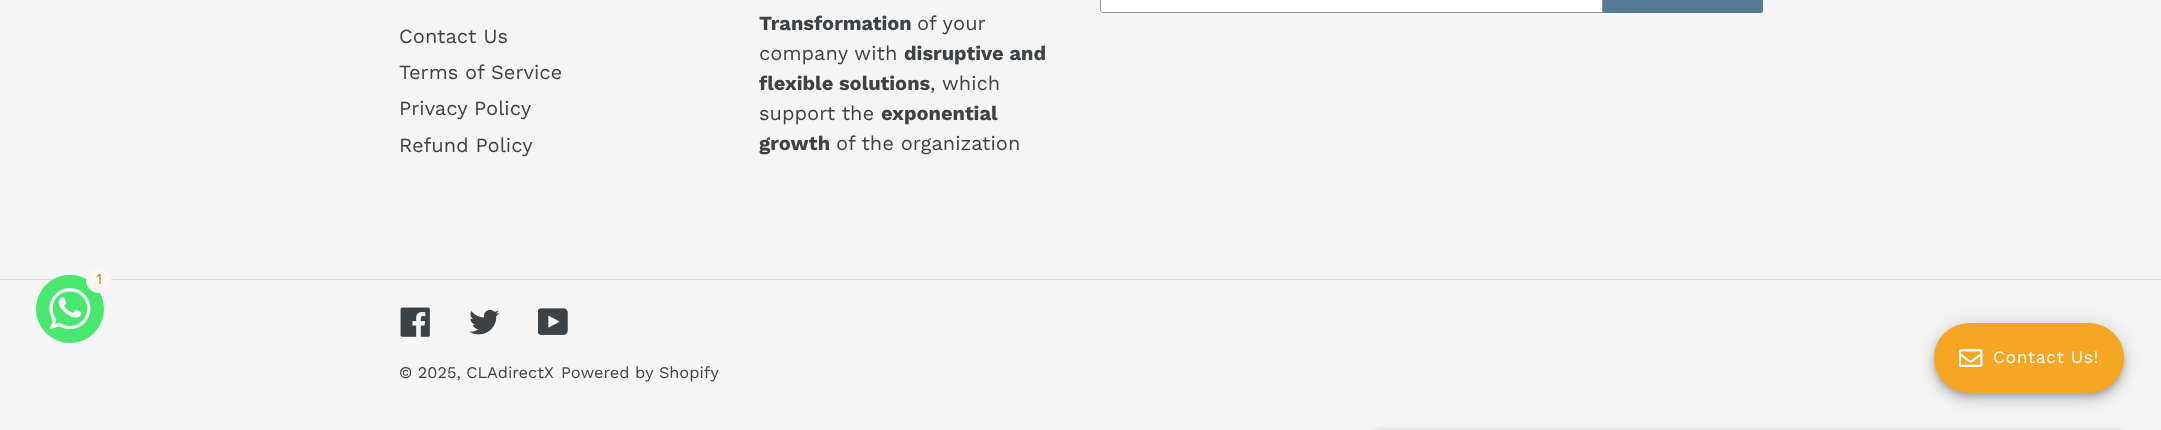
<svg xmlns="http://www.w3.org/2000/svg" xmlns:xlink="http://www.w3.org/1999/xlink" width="2161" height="430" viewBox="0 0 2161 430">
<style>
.cls-1{font:15px Work Sans;fill:#e36e1e}
.cls-2{font:20px Work Sans;fill:#3d4246}
.cls-3{font:bold 20px Work Sans;fill:#3d4246}
.cls-4{font:16.25px Work Sans;fill:#3d4246}
.cls-5{font:17.5px Work Sans;letter-spacing:0.5px;fill:#ffffff}
</style>
<rect width="100%" height="100%" fill="#f5f5f5"/>
<rect fill="#dcdcdc" x="0" y="279" width="2161" height="1"/>
<circle fill="#49e670" cx="70" cy="309" r="34"/>
<image xlink:href="image0.png" x="36" y="275" width="68" height="55"/>
<circle fill="#fdf7f0" cx="98.5" cy="280.5" r="12.5"/>
<path fill="#ffffff" stroke="#949494" d="M1102.5-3.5H1602.5V12.5H1102.5C1101.5 12.5 1100.5 11.5 1100.5 10.5V-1.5C1100.5-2.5 1101.5-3.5 1102.5-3.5Z"/>
<path fill="#557b97" d="M1603-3H1760.5C1762-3 1763-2 1763-.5V10.5C1763 12 1762 13 1760.5 13H1603Z"/>
<image xlink:href="image1.png" x="400" y="307" width="30" height="30"/>
<image xlink:href="image2.png" x="469" y="309" width="31" height="26"/>
<image xlink:href="image3.png" x="538" y="308" width="30" height="27"/>
<rect fill="#000000" fill-opacity="0.12" filter="blur(11px)" x="1934" y="324" width="190" height="70" rx="35"/>
<rect fill="#000000" fill-opacity="0.14" filter="blur(6px)" x="1934" y="330" width="190" height="70" rx="35"/>
<rect fill="#000000" fill-opacity="0.2" filter="blur(3px)" x="1935" y="328" width="188" height="67" rx="33.5"/>
<rect fill="#f5a623" x="1934" y="323" width="190" height="70" rx="35"/>
<image xlink:href="image4.png" x="1959" y="349" width="24" height="18"/>
<rect fill="#000000" fill-opacity="0.2" filter="blur(3px)" x="1374" y="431" width="750" height="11" rx="2.5"/>
<text class="cls-1" x="96" y="284">1</text>
<text class="cls-2"><tspan x="399" y="43">Contact Us</tspan><tspan x="399" y="79">Terms of Service</tspan><tspan x="399" y="115">Privacy Policy</tspan><tspan x="399" y="152">Refund Policy</tspan></text>
<text class="cls-3" x="759" y="30">Transformation</text>
<text class="cls-2" x="917" y="30">of your</text>
<text class="cls-2" x="759" y="60">company with</text>
<text class="cls-3" x="904" y="60">disruptive and</text>
<text class="cls-3" x="759" y="90">flexible solutions</text>
<text class="cls-2" x="930" y="90">, which</text>
<text class="cls-2" x="759" y="120">support the</text>
<text class="cls-3" x="881" y="120">exponential</text>
<text class="cls-3" x="759" y="150">growth</text>
<text class="cls-2" x="836" y="150">of the organization</text>
<text class="cls-4" x="399" y="378">© 2025, CLAdirectX</text>
<text class="cls-4" x="561" y="378">Powered by Shopify</text>
<text class="cls-5" x="1993" y="363">Contact Us!</text>
</svg>
